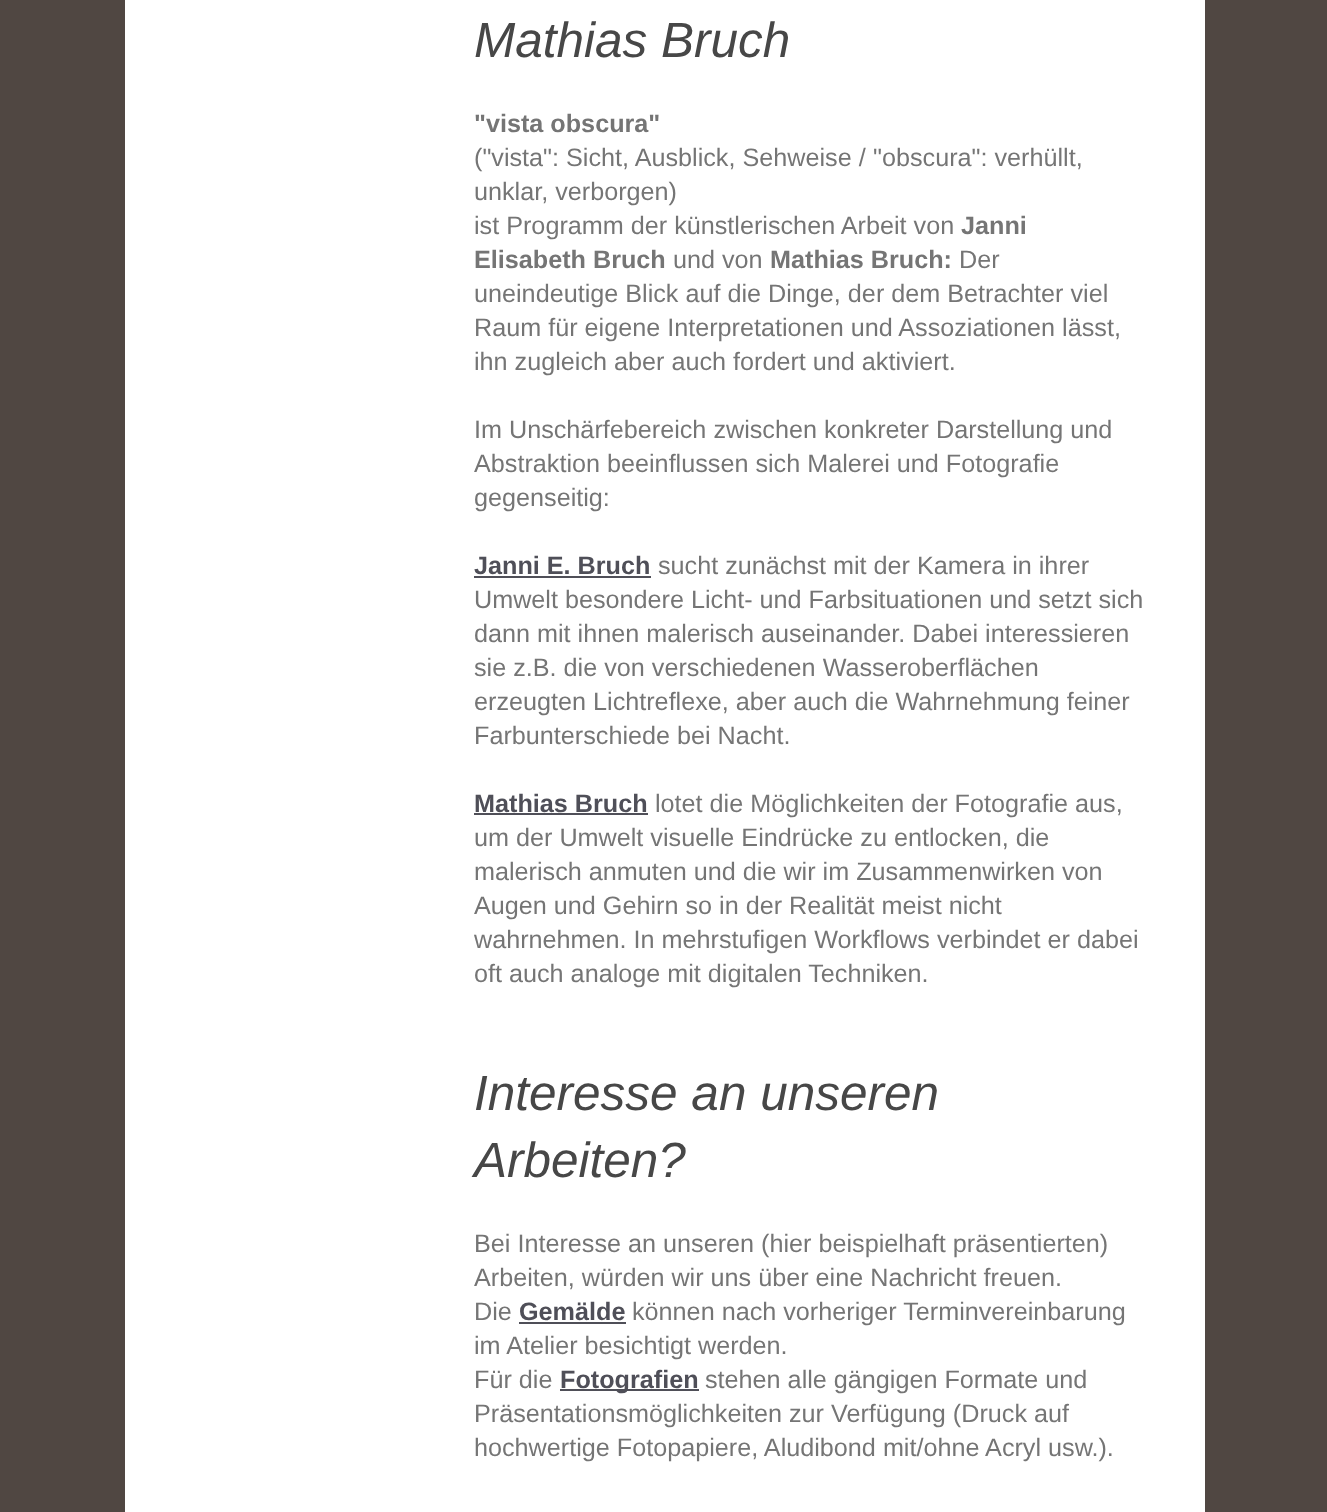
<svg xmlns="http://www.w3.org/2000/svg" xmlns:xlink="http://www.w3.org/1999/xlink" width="1327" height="1512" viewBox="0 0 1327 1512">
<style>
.cls-1{font:italic 49.5px Liberation Sans;fill:#474747}
.cls-2{font:bold 25.2px Liberation Sans;fill:#757575}
.cls-3{font:25.2px Liberation Sans;fill:#757575}
.cls-4{font:bold 25.2px Liberation Sans;fill:#4f4f58}
</style>
<rect width="100%" height="100%" fill="#504742"/>
<rect fill="#ffffff" x="125" y="0" width="1080" height="1512"/>
<rect fill="#4f4f58" x="474" y="576" width="177" height="2"/>
<rect fill="#4f4f58" x="474" y="813" width="174" height="2"/>
<rect fill="#4f4f58" x="519" y="1322" width="107" height="2"/>
<rect fill="#4f4f58" x="560" y="1389" width="139" height="2"/>
<text class="cls-1" x="474" y="57">Mathias Bruch</text>
<text class="cls-2" x="474" y="132">"vista obscura"</text>
<text class="cls-3" x="474" y="166">("vista": Sicht, Ausblick, Sehweise /</text>
<text class="cls-3" x="873" y="166">"obscura": verhüllt,</text>
<text class="cls-3"><tspan x="474" y="200">unklar, verborgen)</tspan><tspan x="474" y="234">ist Programm der künstlerischen Arbeit von</tspan></text>
<text class="cls-2" x="961" y="234">Janni</text>
<text class="cls-2" x="474" y="268">Elisabeth Bruch</text>
<text class="cls-3" x="673" y="268">und von</text>
<text class="cls-2" x="770" y="268">Mathias Bruch:</text>
<text class="cls-3" x="959" y="268">Der</text>
<text class="cls-3"><tspan x="474" y="302">uneindeutige Blick auf die Dinge, der dem Betrachter viel</tspan><tspan x="474" y="336">Raum für eigene Interpretationen und Assoziationen lässt,</tspan><tspan x="474" y="370">ihn zugleich aber auch fordert und aktiviert.</tspan></text>
<text class="cls-3"><tspan x="474" y="438">Im Unschärfebereich zwischen konkreter Darstellung und</tspan><tspan x="474" y="472">Abstraktion beeinflussen sich Malerei und Fotografie</tspan><tspan x="474" y="506">gegenseitig:</tspan></text>
<text class="cls-4" x="474" y="574">Janni E. Bruch</text>
<text class="cls-3" x="658" y="574">sucht zunächst mit der Kamera in ihrer</text>
<text class="cls-3"><tspan x="474" y="608">Umwelt besondere Licht- und Farbsituationen und setzt sich</tspan><tspan x="474" y="642">dann mit ihnen malerisch auseinander. Dabei interessieren</tspan><tspan x="474" y="676">sie z.B. die von verschiedenen Wasseroberflächen</tspan><tspan x="474" y="710">erzeugten Lichtreflexe, aber auch die Wahrnehmung feiner</tspan><tspan x="474" y="744">Farbunterschiede bei Nacht.</tspan></text>
<text class="cls-4" x="474" y="812">Mathias Bruch</text>
<text class="cls-3" x="655" y="812">lotet die Möglichkeiten der Fotografie aus,</text>
<text class="cls-3"><tspan x="474" y="846">um der Umwelt visuelle Eindrücke zu entlocken, die</tspan><tspan x="474" y="880">malerisch anmuten und die wir im Zusammenwirken von</tspan><tspan x="474" y="914">Augen und Gehirn so in der Realität meist nicht</tspan><tspan x="474" y="948">wahrnehmen. In mehrstufigen Workflows verbindet er dabei</tspan><tspan x="474" y="982">oft auch analoge mit digitalen Techniken.</tspan></text>
<text class="cls-1"><tspan x="474" y="1110">Interesse an unseren</tspan><tspan x="474" y="1177">Arbeiten?</tspan></text>
<text class="cls-3"><tspan x="474" y="1252">Bei Interesse an unseren (hier beispielhaft präsentierten)</tspan><tspan x="474" y="1286">Arbeiten, würden wir uns über eine Nachricht freuen.</tspan><tspan x="474" y="1320">Die</tspan></text>
<text class="cls-4" x="519" y="1320">Gemälde</text>
<text class="cls-3" x="632" y="1320">können nach vorheriger Terminvereinbarung</text>
<text class="cls-3"><tspan x="474" y="1354">im Atelier besichtigt werden.</tspan><tspan x="474" y="1388">Für die</tspan></text>
<text class="cls-4" x="560" y="1388">Fotografien</text>
<text class="cls-3" x="705" y="1388">stehen alle gängigen Formate und</text>
<text class="cls-3"><tspan x="474" y="1422">Präsentationsmöglichkeiten zur Verfügung (Druck auf</tspan><tspan x="474" y="1456">hochwertige Fotopapiere, Aludibond mit/ohne Acryl usw.).</tspan></text>
</svg>
